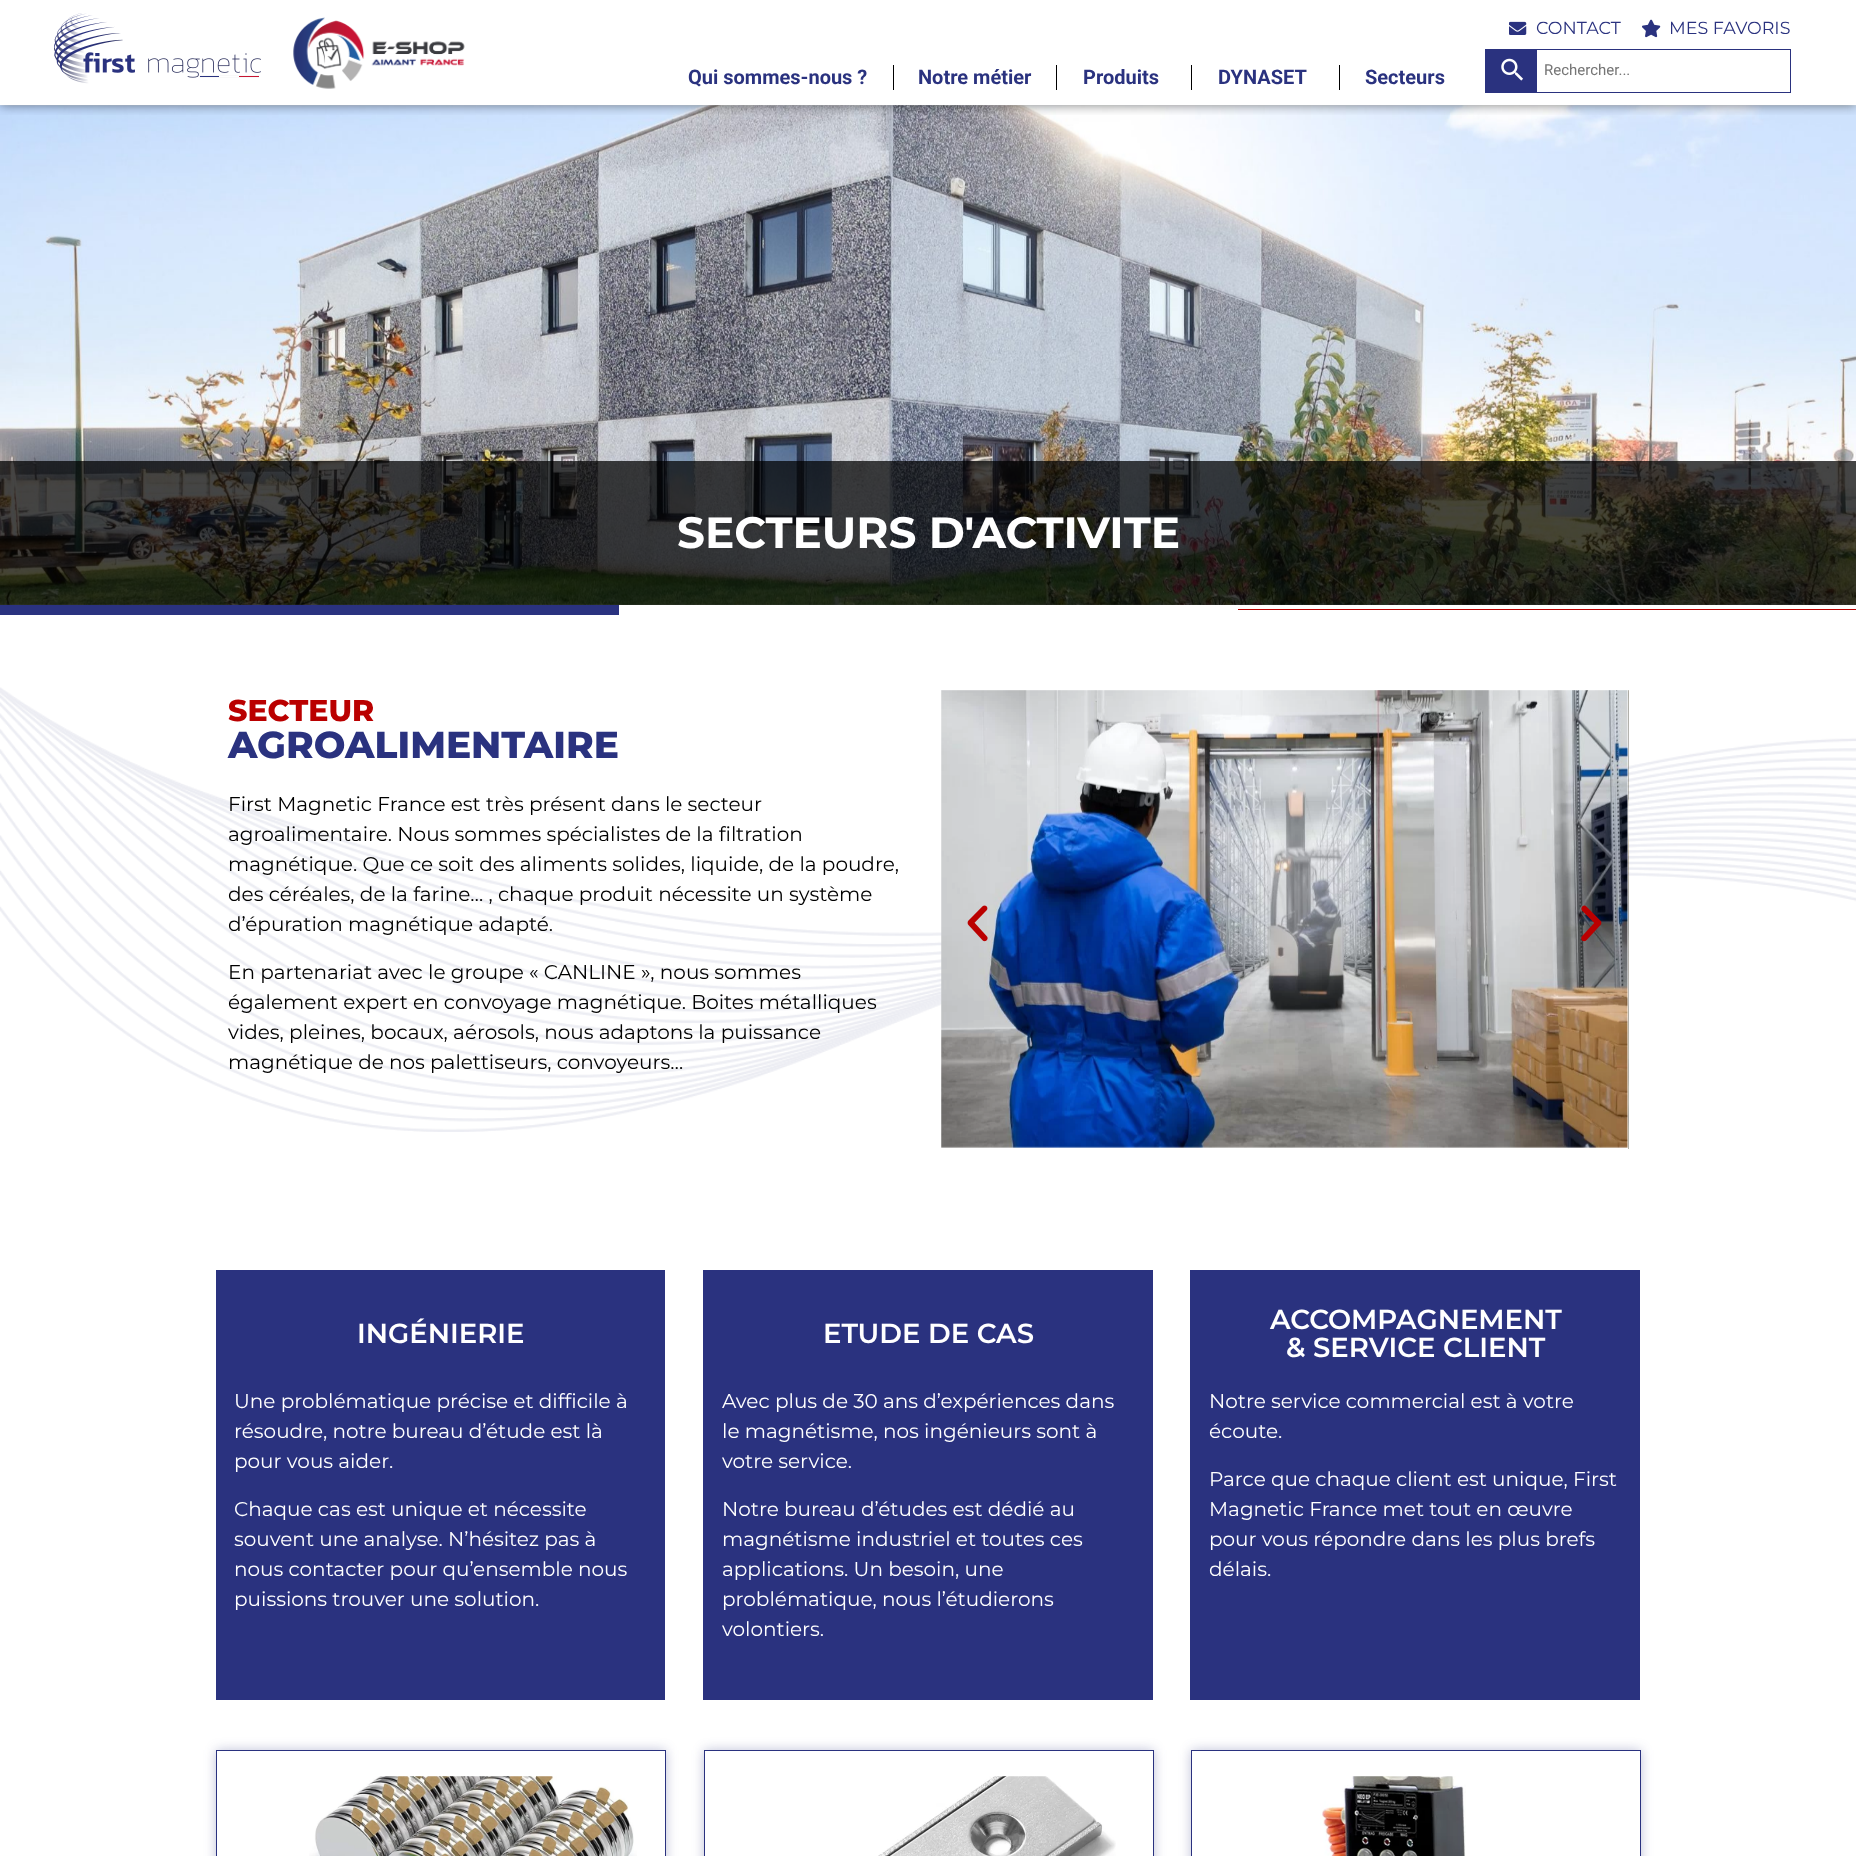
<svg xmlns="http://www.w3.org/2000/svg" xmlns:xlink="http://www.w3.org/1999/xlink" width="1856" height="1856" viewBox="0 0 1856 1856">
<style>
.cls-1{font:17.5px Montserrat;fill:#2a327f}
.cls-2{font:15px Roboto;fill:#757575}
.cls-3{font:bold 20px Roboto;fill:#2a327f}
.cls-4{font:bold 43.75px Montserrat;fill:#ffffff}
.cls-5{font:800 30px Montserrat;fill:#ba0000}
.cls-6{font:800 37.5px Montserrat;fill:#2a327f}
.cls-7{font:20px Montserrat;fill:#000000}
.cls-8{font:600 27.5px Montserrat;fill:#ffffff}
.cls-9{font:20px Montserrat;fill:#ffffff}
</style>
<defs>
<clipPath id="clip1"><rect x="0" y="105" width="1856" height="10"/></clipPath>
</defs>
<rect width="100%" height="100%" fill="#ffffff"/>
<image xlink:href="image5.png" x="0" y="105" width="1856" height="500"/>
<g clip-path="url(#clip1)">
<rect fill="#000000" fill-opacity="0.5" filter="blur(6px)" x="0" y="0" width="1856" height="105"/>
</g>
<image xlink:href="image0.png" x="54" y="13" width="207" height="71"/>
<image xlink:href="image1.png" x="293" y="17" width="172" height="72"/>
<image xlink:href="image2.png" x="1509" y="21" width="18" height="14"/>
<image xlink:href="image3.png" x="1642" y="19" width="19" height="19"/>
<rect fill="#2a327f" x="1485" y="49" width="51" height="44"/>
<image xlink:href="image4.png" x="1501" y="58" width="22" height="23"/>
<rect fill="none" stroke="#2a327f" x="1536.5" y="49.5" width="254" height="43"/>
<rect fill="#000000" x="893" y="65" width="1" height="25"/>
<rect fill="#000000" x="1056" y="65" width="1" height="25"/>
<rect fill="#000000" x="1191" y="65" width="1" height="25"/>
<rect fill="#000000" x="1339" y="65" width="1" height="25"/>
<rect fill="#000000" fill-opacity="0.73" x="0" y="461" width="1856" height="144"/>
<rect fill="#2a327f" x="0" y="605" width="619" height="10"/>
<rect fill="#ba0000" x="1238" y="609" width="618" height="1"/>
<image xlink:href="image6.png" x="0" y="687" width="1856" height="445"/>
<image xlink:href="image7.png" x="941" y="690" width="687" height="458"/>
<image xlink:href="image8.png" x="1628" y="690" width="1" height="459"/>
<image xlink:href="image9.png" x="967" y="905" width="21" height="37"/>
<image xlink:href="image10.png" x="1581" y="905" width="21" height="37"/>
<rect fill="#2a327f" x="216" y="1270" width="449" height="430"/>
<rect fill="#2a327f" x="703" y="1270" width="450" height="430"/>
<rect fill="#2a327f" x="1190" y="1270" width="450" height="430"/>
<rect fill="#2a327f" fill-opacity="0.3" filter="blur(6px)" x="216" y="1750" width="450" height="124"/>
<rect fill="#ffffff" stroke="#2a327f" x="216.5" y="1750.5" width="449" height="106"/>
<image xlink:href="image11.png" x="309" y="1776" width="328" height="80"/>
<rect fill="#2a327f" fill-opacity="0.3" filter="blur(6px)" x="704" y="1750" width="450" height="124"/>
<rect fill="#ffffff" stroke="#2a327f" x="704.5" y="1750.5" width="449" height="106"/>
<image xlink:href="image12.png" x="878" y="1776" width="238" height="80"/>
<rect fill="#2a327f" fill-opacity="0.3" filter="blur(6px)" x="1191" y="1750" width="450" height="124"/>
<rect fill="#ffffff" stroke="#2a327f" x="1191.5" y="1750.5" width="449" height="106"/>
<image xlink:href="image13.png" x="1320" y="1776" width="146" height="80"/>
<text class="cls-1" x="1536" y="34">CONTACT</text>
<text class="cls-1" x="1669" y="34">MES FAVORIS</text>
<text class="cls-2" x="1544" y="75">Rechercher...</text>
<text class="cls-3" x="688" y="84">Qui sommes-nous ?</text>
<text class="cls-3" x="918" y="84">Notre métier</text>
<text class="cls-3" x="1083" y="84">Produits</text>
<text class="cls-3" x="1218" y="84">DYNASET</text>
<text class="cls-3" x="1365" y="84">Secteurs</text>
<text class="cls-4" x="677" y="548">SECTEURS D'ACTIVITE</text>
<text class="cls-5" x="228" y="721">SECTEUR</text>
<text class="cls-6" x="228" y="758">AGROALIMENTAIRE</text>
<text class="cls-7"><tspan x="228" y="811">First Magnetic France est très présent dans le secteur</tspan><tspan x="228" y="841">agroalimentaire. Nous sommes spécialistes de la filtration</tspan><tspan x="228" y="871">magnétique. Que ce soit des aliments solides, liquide, de la poudre,</tspan><tspan x="228" y="901">des céréales, de la farine… , chaque produit nécessite un système</tspan><tspan x="228" y="931">d’épuration magnétique adapté.</tspan></text>
<text class="cls-7"><tspan x="228" y="979">En partenariat avec le groupe « CANLINE », nous sommes</tspan><tspan x="228" y="1009">également expert en convoyage magnétique. Boites métalliques</tspan><tspan x="228" y="1039">vides, pleines, bocaux, aérosols, nous adaptons la puissance</tspan><tspan x="228" y="1069">magnétique de nos palettiseurs, convoyeurs…</tspan></text>
<text class="cls-8" x="357" y="1343">INGÉNIERIE</text>
<text class="cls-9"><tspan x="234" y="1408">Une problématique précise et difficile à</tspan><tspan x="234" y="1438">résoudre, notre bureau d’étude est là</tspan><tspan x="234" y="1468">pour vous aider.</tspan></text>
<text class="cls-9"><tspan x="234" y="1516">Chaque cas est unique et nécessite</tspan><tspan x="234" y="1546">souvent une analyse. N’hésitez pas à</tspan><tspan x="234" y="1576">nous contacter pour qu’ensemble nous</tspan><tspan x="234" y="1606">puissions trouver une solution.</tspan></text>
<text class="cls-8" x="823" y="1343">ETUDE DE CAS</text>
<text class="cls-9"><tspan x="722" y="1408">Avec plus de 30 ans d’expériences dans</tspan><tspan x="722" y="1438">le magnétisme, nos ingénieurs sont à</tspan><tspan x="722" y="1468">votre service.</tspan></text>
<text class="cls-9"><tspan x="722" y="1516">Notre bureau d’études est dédié au</tspan><tspan x="722" y="1546">magnétisme industriel et toutes ces</tspan><tspan x="722" y="1576">applications. Un besoin, une</tspan><tspan x="722" y="1606">problématique, nous l’étudierons</tspan><tspan x="722" y="1636">volontiers.</tspan></text>
<text class="cls-8" x="1270" y="1329">ACCOMPAGNEMENT</text>
<text class="cls-8" x="1286" y="1357">&amp; SERVICE CLIENT</text>
<text class="cls-9"><tspan x="1209" y="1408">Notre service commercial est à votre</tspan><tspan x="1209" y="1438">écoute.</tspan></text>
<text class="cls-9"><tspan x="1209" y="1486">Parce que chaque client est unique, First</tspan><tspan x="1209" y="1516">Magnetic France met tout en œuvre</tspan><tspan x="1209" y="1546">pour vous répondre dans les plus brefs</tspan><tspan x="1209" y="1576">délais.</tspan></text>
</svg>
